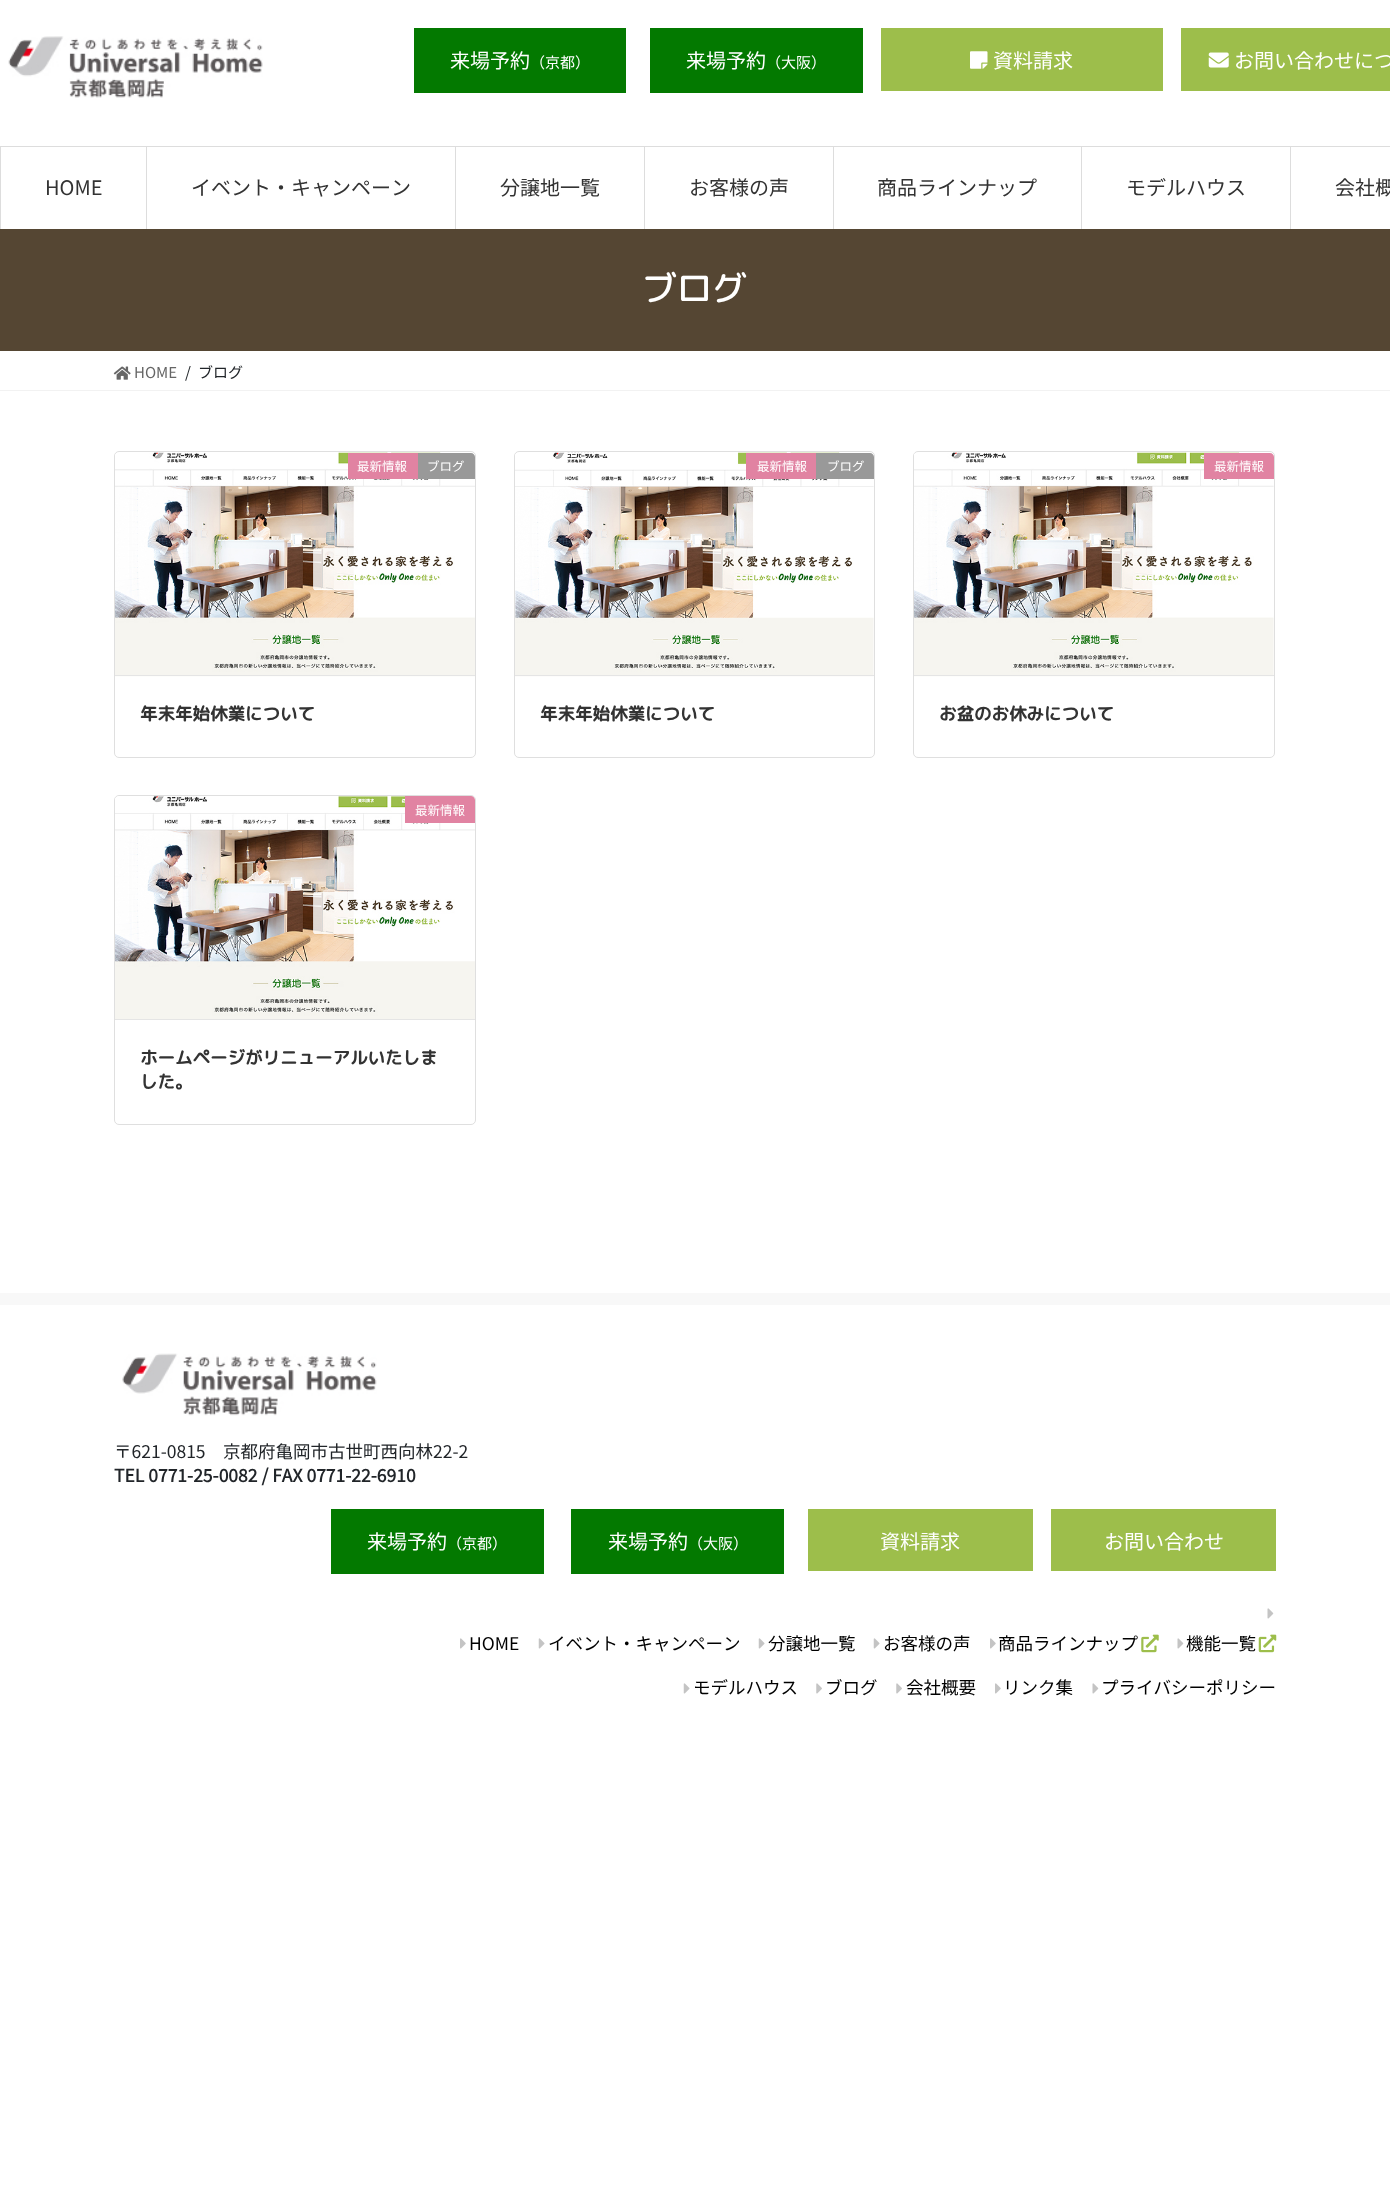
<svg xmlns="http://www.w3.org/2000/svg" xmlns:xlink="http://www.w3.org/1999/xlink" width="1390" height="2187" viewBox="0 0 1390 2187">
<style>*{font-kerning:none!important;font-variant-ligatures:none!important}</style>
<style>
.cls-1{font:100 20px Noto Sans JP;fill:#ffffff}
.cls-2{font:100 15px Noto Sans JP;fill:#ffffff}
.cls-3{font:100 20px Noto Sans JP;fill:#333333}
.cls-4{font:500 35px 'Rounded Mplus 1c';fill:#ffffff}
.cls-5{font:100 15px Noto Sans JP;fill:#666666}
.cls-6{font:100 15px Noto Sans JP;fill:#212529}
.cls-7{font:100 12.5px Noto Sans JP;fill:#ffffff}
.cls-8{font:bold 17.5px 'Rounded Mplus 1c';fill:#333333}
.cls-9{font:100 17.5px Noto Sans JP;fill:#212529}
.cls-10{font:bold 17.5px Noto Sans JP;fill:#212529}
.cls-11{font:100 17.5px Noto Sans JP;fill:#000000}
</style>
<rect width="100%" height="100%" fill="#ffffff"/>
<image xlink:href="image0.png" x="8" y="36" width="255" height="62"/>
<rect fill="#037900" x="414" y="28" width="212" height="65"/>
<rect fill="#037900" x="650" y="28" width="213" height="65"/>
<rect fill="#9dbe4b" x="881" y="28" width="282" height="63"/>
<image xlink:href="image1.png" x="970" y="51" width="18" height="18"/>
<rect fill="#9dbe4b" x="1181" y="28" width="209" height="63"/>
<image xlink:href="image2.png" x="1208" y="52" width="21" height="16"/>
<rect fill="#dddddd" x="0" y="146" width="1390" height="1"/>
<rect fill="#dddddd" x="146" y="146" width="1" height="83"/>
<rect fill="#dddddd" x="0" y="146" width="1" height="83"/>
<rect fill="#dddddd" x="455" y="146" width="1" height="83"/>
<rect fill="#dddddd" x="644" y="146" width="1" height="83"/>
<rect fill="#dddddd" x="833" y="146" width="1" height="83"/>
<rect fill="#dddddd" x="1081" y="146" width="1" height="83"/>
<rect fill="#dddddd" x="1290" y="146" width="1" height="83"/>
<rect fill="#554633" x="0" y="229" width="1390" height="122"/>
<rect fill="#f2f2f2" x="0" y="390" width="1390" height="1"/>
<image xlink:href="image3.png" x="113" y="366" width="18" height="14"/>
<rect fill="none" stroke="#dfdfdf" x="114.5" y="451.5" width="361" height="306" rx="4.5"/>
<image xlink:href="image4.png" x="115" y="452" width="360" height="225"/>
<rect fill="#e5e5e5" x="115" y="675" width="360" height="1"/>
<rect fill="#e183a2" x="348" y="453" width="70" height="26"/>
<path fill="#999999" d="M418 453H471C473 453 475 455 475 457V479H418Z"/>
<rect fill="none" stroke="#dfdfdf" x="514.5" y="451.5" width="360" height="306" rx="4.5"/>
<image xlink:href="image5.png" x="515" y="452" width="359" height="225"/>
<rect fill="#e5e5e5" x="515" y="675" width="359" height="1"/>
<rect fill="#e183a2" x="746" y="453" width="70" height="26"/>
<path fill="#999999" d="M816 453H870C872 453 874 455 874 457V479H816Z"/>
<rect fill="none" stroke="#dfdfdf" x="913.5" y="451.5" width="361" height="306" rx="4.5"/>
<image xlink:href="image6.png" x="914" y="452" width="360" height="225"/>
<rect fill="#e5e5e5" x="914" y="675" width="360" height="1"/>
<path fill="#e183a2" d="M1204 453H1270C1272 453 1274 455 1274 457V479H1204Z"/>
<rect fill="none" stroke="#dfdfdf" x="114.5" y="795.5" width="361" height="329" rx="4.5"/>
<image xlink:href="image7.png" x="115" y="796" width="360" height="223"/>
<rect fill="#e5e5e5" x="115" y="1019" width="360" height="1"/>
<path fill="#e183a2" d="M405 796H471C473 796 475 798 475 800V823H405Z"/>
<rect fill="#f8f8f8" x="0" y="1293" width="1390" height="12"/>
<image xlink:href="image8.png" x="122" y="1353" width="255" height="63"/>
<rect fill="#037900" x="331" y="1509" width="213" height="65"/>
<rect fill="#037900" x="571" y="1509" width="213" height="65"/>
<rect fill="#9dbe4b" x="808" y="1509" width="225" height="62"/>
<rect fill="#9dbe4b" x="1051" y="1509" width="225" height="62"/>
<image xlink:href="image9.png" x="1267" y="1608" width="7" height="11"/>
<image xlink:href="image10.png" x="460" y="1638" width="6" height="11"/>
<image xlink:href="image11.png" x="538" y="1638" width="7" height="11"/>
<image xlink:href="image11.png" x="758" y="1638" width="7" height="11"/>
<image xlink:href="image11.png" x="873" y="1638" width="7" height="11"/>
<image xlink:href="image10.png" x="990" y="1638" width="6" height="11"/>
<image xlink:href="image12.png" x="1141" y="1634" width="18" height="19"/>
<image xlink:href="image9.png" x="1177" y="1638" width="7" height="11"/>
<image xlink:href="image13.png" x="1258" y="1634" width="19" height="19"/>
<image xlink:href="image11.png" x="683" y="1683" width="7" height="11"/>
<image xlink:href="image14.png" x="816" y="1683" width="6" height="11"/>
<image xlink:href="image14.png" x="896" y="1683" width="6" height="11"/>
<image xlink:href="image10.png" x="995" y="1683" width="6" height="11"/>
<image xlink:href="image9.png" x="1092" y="1683" width="7" height="11"/>
<text class="cls-1" x="450" y="68">来場予約</text>
<text class="cls-2" x="530" y="68">（京都）</text>
<text class="cls-1" x="686" y="68">来場予約</text>
<text class="cls-2" x="766" y="68">（大阪）</text>
<text class="cls-1" x="993" y="68">資料請求</text>
<text class="cls-1" x="1234" y="68">お問い合わせにつ</text>
<text class="cls-3" x="45" y="195">HOME</text>
<text class="cls-3" x="191" y="195">イベント・キャンペーン</text>
<text class="cls-3" x="500" y="195">分譲地一覧</text>
<text class="cls-3" x="689" y="195">お客様の声</text>
<text class="cls-3" x="877" y="195">商品ラインナップ</text>
<text class="cls-3" x="1126" y="195">モデルハウス</text>
<text class="cls-3" x="1335" y="195">会社概</text>
<text class="cls-4" x="642" y="301">ブログ</text>
<text class="cls-5" x="134" y="378">HOME</text>
<text class="cls-6" x="185" y="378">/</text>
<text class="cls-6" x="198" y="378">ブログ</text>
<text class="cls-7" x="357" y="471">最新情報</text>
<text class="cls-7" x="427" y="471">ブログ</text>
<text class="cls-8" x="140" y="720">年末年始休業について</text>
<text class="cls-7" x="757" y="471">最新情報</text>
<text class="cls-7" x="827" y="471">ブログ</text>
<text class="cls-8" x="540" y="720">年末年始休業について</text>
<text class="cls-7" x="1214" y="471">最新情報</text>
<text class="cls-8" x="939" y="720">お盆のお休みについて</text>
<text class="cls-7" x="415" y="815">最新情報</text>
<text class="cls-8"><tspan x="140" y="1064">ホームページがリニューアルいたしま</tspan><tspan x="140" y="1088">した。</tspan></text>
<text class="cls-9" x="114" y="1458">〒621-0815　京都府亀岡市古世町西向林22-2</text>
<text class="cls-10" x="114" y="1482">TEL 0771-25-0082 / FAX 0771-22-6910</text>
<text class="cls-1" x="367" y="1549">来場予約</text>
<text class="cls-2" x="447" y="1549">（京都）</text>
<text class="cls-1" x="608" y="1549">来場予約</text>
<text class="cls-2" x="688" y="1549">（大阪）</text>
<text class="cls-1" x="880" y="1549">資料請求</text>
<text class="cls-1" x="1104" y="1549">お問い合わせ</text>
<text class="cls-11" x="469" y="1650">HOME</text>
<text class="cls-11" x="548" y="1650">イベント・キャンペーン</text>
<text class="cls-11" x="768" y="1650">分譲地一覧</text>
<text class="cls-11" x="883" y="1650">お客様の声</text>
<text class="cls-11" x="998" y="1650">商品ラインナップ</text>
<text class="cls-11" x="1186" y="1650">機能一覧</text>
<text class="cls-11" x="693" y="1694">モデルハウス</text>
<text class="cls-11" x="825" y="1694">ブログ</text>
<text class="cls-11" x="906" y="1694">会社概要</text>
<text class="cls-11" x="1003" y="1694">リンク集</text>
<text class="cls-11" x="1101" y="1694">プライバシーポリシー</text>
</svg>
